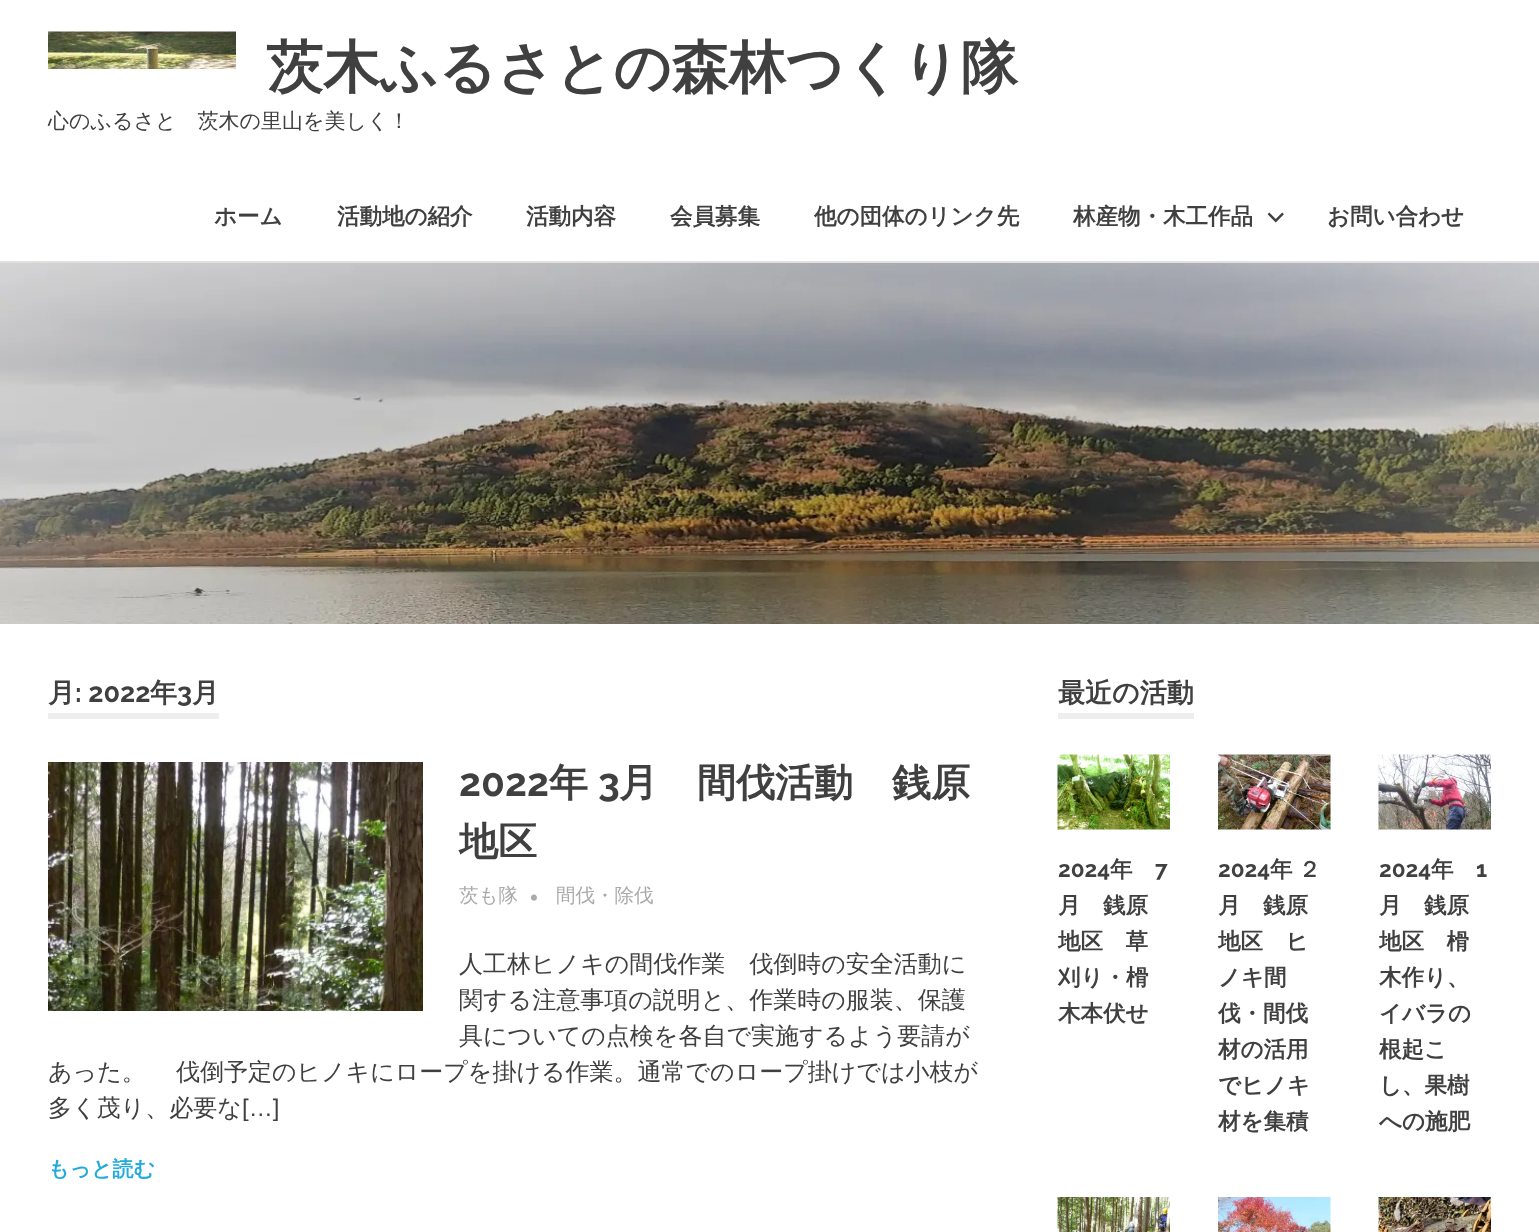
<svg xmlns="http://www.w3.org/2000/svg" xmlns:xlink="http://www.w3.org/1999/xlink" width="1539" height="1232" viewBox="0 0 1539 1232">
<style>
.cls-1{font:bold 57px WenQuanYi Zen Hei;fill:#404040}
.cls-2{font:500 21px WenQuanYi Zen Hei;fill:#404040}
.cls-3{font:bold 22.5px WenQuanYi Zen Hei;fill:#404040}
.cls-4{font:bold 27px WenQuanYi Zen Hei;fill:#404040}
.cls-5{font:100 27px Raleway;fill:#404040}
.cls-6{font:100 39px Raleway;fill:#404040}
.cls-7{font:bold 39px WenQuanYi Zen Hei;fill:#404040}
.cls-8{font:500 19.5px WenQuanYi Zen Hei;fill:#aaaaaa}
.cls-9{font:22.5px Liberation Sans;fill:#aaaaaa}
.cls-10{font:500 24px WenQuanYi Zen Hei;fill:#404040}
.cls-11{font:24px Liberation Sans;fill:#404040}
.cls-12{font:bold 21px WenQuanYi Zen Hei;fill:#22aadd}
.cls-13{font:100 22.5px Raleway;fill:#404040}
</style>
<rect width="100%" height="100%" fill="#ffffff"/>
<rect fill="#e0e0e0" x="0" y="261" width="1539" height="2"/>
<image xlink:href="image0.png" x="48" y="31" width="188" height="38"/>
<image xlink:href="image1.png" x="1267" y="212" width="17" height="11"/>
<image xlink:href="image2.png" x="0" y="263" width="1539" height="361"/>
<rect fill="#eeeeee" x="48" y="713" width="171" height="6"/>
<image xlink:href="image3.png" x="48" y="762" width="375" height="249"/>
<rect fill="#eeeeee" x="1058" y="713" width="136" height="6"/>
<image xlink:href="image4.png" x="1057" y="754" width="113" height="76"/>
<image xlink:href="image5.png" x="1218" y="754" width="113" height="76"/>
<image xlink:href="image6.png" x="1378" y="754" width="113" height="76"/>
<image xlink:href="image7.png" x="1057" y="1197" width="113" height="35"/>
<image xlink:href="image8.png" x="1218" y="1197" width="113" height="35"/>
<image xlink:href="image9.png" x="1378" y="1197" width="113" height="35"/>
<text class="cls-1" x="266" y="87">茨木ふるさとの森林つくり隊</text>
<text class="cls-2" x="48" y="128">心のふるさと　茨木の里山を美しく！</text>
<text class="cls-3" x="214" y="224">ホーム</text>
<text class="cls-3" x="337" y="224">活動地の紹介</text>
<text class="cls-3" x="526" y="224">活動内容</text>
<text class="cls-3" x="670" y="224">会員募集</text>
<text class="cls-3" x="814" y="224">他の団体のリンク先</text>
<text class="cls-3" x="1073" y="224">林産物・木工作品</text>
<text class="cls-3" x="1327" y="224">お問い合わせ</text>
<text class="cls-4" x="48" y="702">月</text>
<text class="cls-5" x="75" y="702">: 2022</text>
<text class="cls-4" x="150" y="702">年</text>
<text class="cls-5" x="177" y="702">3</text>
<text class="cls-4" x="192" y="702">月</text>
<text class="cls-6" x="459" y="796">2022</text>
<text class="cls-7" x="549" y="796">年</text>
<text class="cls-6" x="598" y="796">3</text>
<text class="cls-7" x="619" y="796">月　間伐活動　銭原</text>
<text class="cls-7" x="459" y="855">地区</text>
<text class="cls-8" x="459" y="902">茨も隊</text>
<text class="cls-9" x="530" y="905">•</text>
<text class="cls-8" x="556" y="902">間伐・除伐</text>
<text class="cls-10"><tspan x="459" y="972">人工林ヒノキの間伐作業　伐倒時の安全活動に</tspan><tspan x="459" y="1008">関する注意事項の説明と、作業時の服装、保護</tspan><tspan x="459" y="1044">具についての点検を各自で実施するよう要請が</tspan></text>
<text class="cls-10"><tspan x="48" y="1080" word-spacing="-1">あった。　 伐倒予定のヒノキにロープを掛ける作業。通常でのロープ掛けでは小枝が</tspan><tspan x="48" y="1116">多く茂り、必要な</tspan></text>
<text class="cls-11" x="242" y="1116">[…]</text>
<text class="cls-12" x="48" y="1176">もっと読む</text>
<text class="cls-4" x="1058" y="702">最近の活動</text>
<text class="cls-13" x="1058" y="877">2024</text>
<text class="cls-3" x="1110" y="877">年</text>
<text class="cls-13" x="1155" y="877">7</text>
<text class="cls-3"><tspan x="1058" y="913">月　銭原</tspan><tspan x="1058" y="949">地区　草</tspan><tspan x="1058" y="985">刈り・榾</tspan><tspan x="1058" y="1021">木本伏せ</tspan></text>
<text class="cls-13" x="1218" y="877">2024</text>
<text class="cls-3" x="1270" y="877" word-spacing="-1">年 ２</text>
<text class="cls-3"><tspan x="1218" y="913">月　銭原</tspan><tspan x="1218" y="949">地区　ヒ</tspan><tspan x="1218" y="985">ノキ間</tspan><tspan x="1218" y="1021">伐・間伐</tspan><tspan x="1218" y="1057">材の活用</tspan><tspan x="1218" y="1093">でヒノキ</tspan><tspan x="1218" y="1129">材を集積</tspan></text>
<text class="cls-13" x="1379" y="877">2024</text>
<text class="cls-3" x="1431" y="877">年</text>
<text class="cls-13" x="1476" y="877">1</text>
<text class="cls-3"><tspan x="1379" y="913">月　銭原</tspan><tspan x="1379" y="949">地区　榾</tspan><tspan x="1379" y="985">木作り、</tspan><tspan x="1379" y="1021">イバラの</tspan><tspan x="1379" y="1057">根起こ</tspan><tspan x="1379" y="1093">し、果樹</tspan><tspan x="1379" y="1129">への施肥</tspan></text>
</svg>
